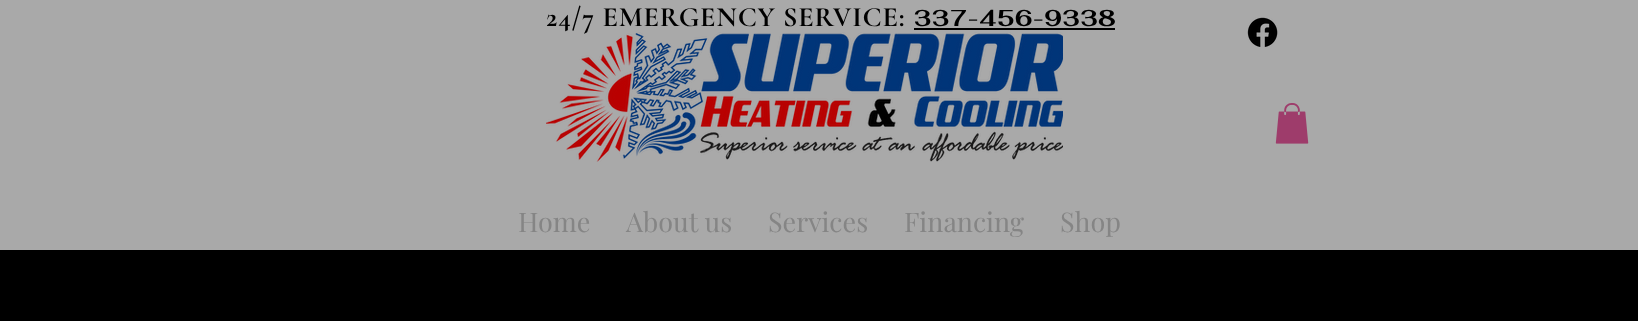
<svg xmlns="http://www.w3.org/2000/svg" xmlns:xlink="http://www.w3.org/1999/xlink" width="1638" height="321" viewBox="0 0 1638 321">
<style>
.cls-1{font:bold 28px Cormorant Garamond;letter-spacing:0.8px;fill:#000000}
.cls-2{font:bold 23px Fahkwang;letter-spacing:0.75px;fill:#000000}
.cls-3{font:27px Playfair Display;fill:#858585}
</style>
<rect width="100%" height="100%" fill="#000000"/>
<rect fill="#a9a9a9" x="0" y="0" width="1638" height="250"/>
<rect fill="#000000" x="914" y="28" width="201" height="2"/>
<image xlink:href="image0.png" x="1247" y="17" width="31" height="30"/>
<image xlink:href="image1.png" x="546" y="32" width="517" height="130"/>
<image xlink:href="image2.png" x="1275" y="103" width="34" height="41"/>
<text class="cls-1" x="546" y="26">24/7 EMERGENCY SERVICE:</text>
<text class="cls-2" x="914" y="26">337-456-9338</text>
<text class="cls-3" x="518" y="232">Home</text>
<text class="cls-3" x="626" y="232">About us</text>
<text class="cls-3" x="768" y="232">Services</text>
<text class="cls-3" x="904" y="232">Financing</text>
<text class="cls-3" x="1060" y="232">Shop</text>
</svg>
